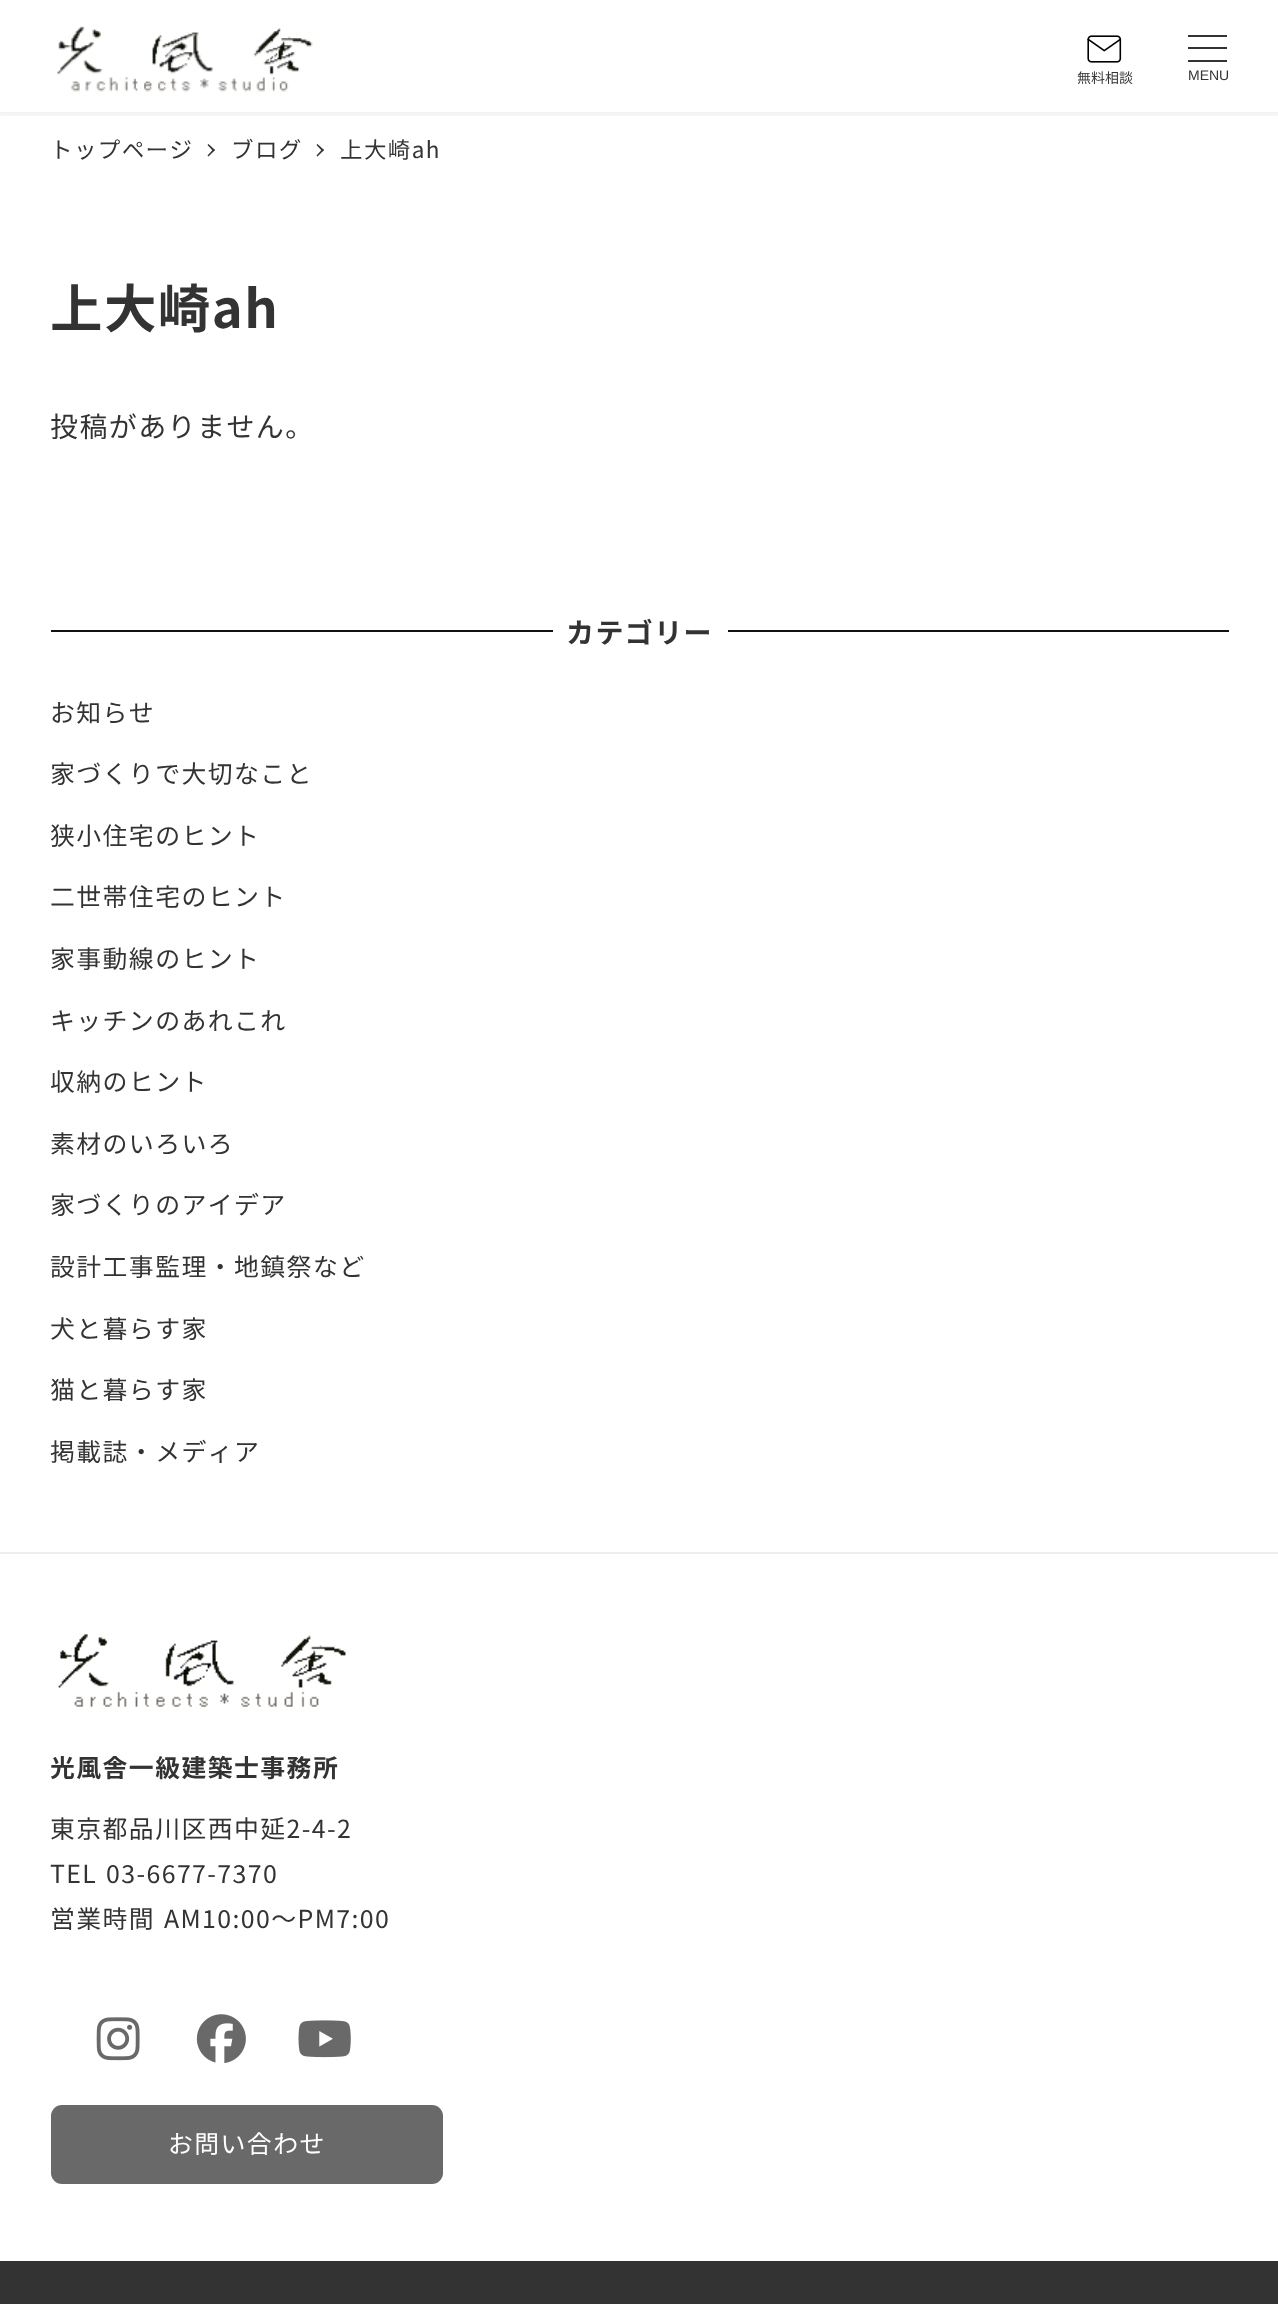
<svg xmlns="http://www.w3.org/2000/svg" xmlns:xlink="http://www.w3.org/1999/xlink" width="1278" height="2304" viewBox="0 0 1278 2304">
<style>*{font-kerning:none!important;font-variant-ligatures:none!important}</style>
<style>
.cls-1{font:14px Liberation Sans;fill:#333333}
.cls-2{font:22.5px Noto Sans JP;letter-spacing:1.4px;fill:#333333}
.cls-3{font:bold 52.5px Noto Sans JP;letter-spacing:1.4px;fill:#333333}
.cls-4{font:28px Noto Sans JP;letter-spacing:1.4px;fill:#333333}
.cls-5{font:bold 28px Noto Sans JP;letter-spacing:1.4px;fill:#333333}
.cls-6{font:24.9px Noto Sans JP;letter-spacing:1.4px;fill:#333333}
.cls-7{font:bold 24.9px Noto Sans JP;letter-spacing:1.4px;fill:#333333}
.cls-8{font:24.9px Noto Sans JP;letter-spacing:1.4px;fill:#ffffff}
.cls-9{font:14px Noto Sans JP;fill:#333333}
</style>
<defs>
<clipPath id="clip1"><rect x="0" y="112" width="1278" height="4"/></clipPath>
</defs>
<rect width="100%" height="100%" fill="#ffffff"/>
<g clip-path="url(#clip1)">
<rect fill="#000000" fill-opacity="0.05" filter="blur(2px)" x="-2" y="0" width="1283" height="116"/>
</g>
<image xlink:href="image0.png" x="57" y="26" width="256" height="66"/>
<rect fill="#333333" x="1188" y="35" width="39" height="2"/>
<rect fill="#333333" x="1188" y="47" width="39" height="2"/>
<rect fill="#333333" x="1188" y="60" width="39" height="2"/>
<path fill="#333333" d="M208.5 144L215 150L213.5 151.5L207.5 145Z"/>
<path fill="#333333" d="M213.5 149L215 150L208.5 156.5L207.5 155.5Z"/>
<path fill="#333333" d="M317.5 144L324 150L322.5 151.5L316.5 145Z"/>
<path fill="#333333" d="M322.5 149L324 150L317.5 156.5L316.5 155.5Z"/>
<rect fill="#111111" x="51" y="630" width="502" height="2"/>
<rect fill="#111111" x="728" y="630" width="501" height="2"/>
<rect fill="#eeeeee" x="0" y="1552" width="1278" height="2"/>
<image xlink:href="image1.png" x="58" y="1634" width="288" height="73"/>
<image xlink:href="image2.png" x="96" y="2017" width="44" height="44"/>
<image xlink:href="image3.png" x="196" y="2014" width="50" height="49"/>
<image xlink:href="image4.png" x="298" y="2020" width="53" height="38"/>
<rect fill="#696969" x="51" y="2105" width="392" height="79" rx="11"/>
<rect fill="#333333" x="0" y="2261" width="1278" height="43"/>
<image xlink:href="image5.png" x="1087" y="35" width="35" height="28"/>
<text class="cls-1" x="1188" y="80">MENU</text>
<text class="cls-2" x="50" y="158">トップページ</text>
<text class="cls-2" x="231" y="158">ブログ</text>
<text class="cls-2" x="340" y="158">上大崎ah</text>
<text class="cls-3" x="50" y="328">上大崎ah</text>
<text class="cls-4" x="50" y="437">投稿がありません。</text>
<text class="cls-5" x="566" y="643">カテゴリー</text>
<text class="cls-6" x="50" y="722">お知らせ</text>
<text class="cls-6" x="50" y="783">家づくりで大切なこと</text>
<text class="cls-6" x="50" y="845">狭小住宅のヒント</text>
<text class="cls-6" x="50" y="906">二世帯住宅のヒント</text>
<text class="cls-6" x="50" y="968">家事動線のヒント</text>
<text class="cls-6" x="50" y="1030">キッチンのあれこれ</text>
<text class="cls-6" x="50" y="1091">収納のヒント</text>
<text class="cls-6" x="50" y="1153">素材のいろいろ</text>
<text class="cls-6" x="50" y="1214">家づくりのアイデア</text>
<text class="cls-6" x="50" y="1276">設計工事監理・地鎮祭など</text>
<text class="cls-6" x="50" y="1338">犬と暮らす家</text>
<text class="cls-6" x="50" y="1399">猫と暮らす家</text>
<text class="cls-6" x="50" y="1461">掲載誌・メディア</text>
<text class="cls-7" x="50" y="1777">光風舎一級建築士事務所</text>
<text class="cls-6"><tspan x="50" y="1838">東京都品川区西中延2-4-2</tspan><tspan x="50" y="1883">TEL</tspan></text>
<text class="cls-6" x="106" y="1883">03-6677-7370</text>
<text class="cls-6" x="50" y="1928">営業時間</text>
<text class="cls-6" x="164" y="1928">AM10:00～PM7:00</text>
<text class="cls-8" x="168" y="2153">お問い合わせ</text>
<text class="cls-9" x="1077" y="83">無料相談</text>
</svg>
